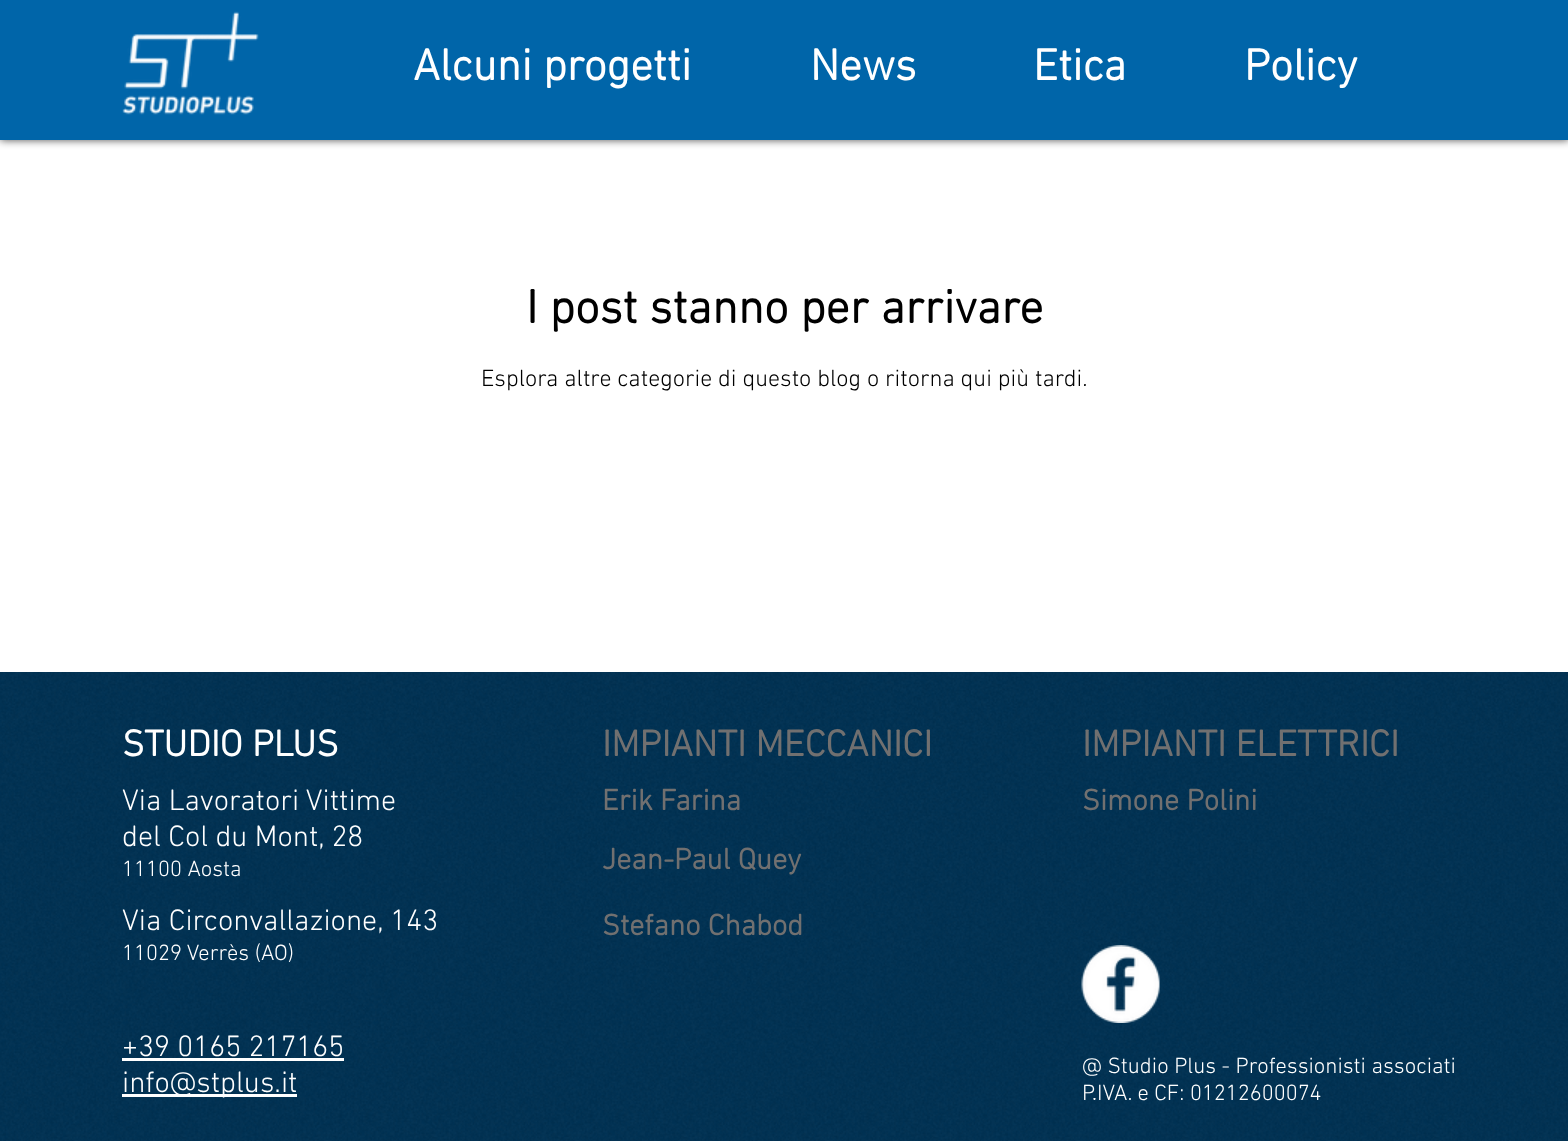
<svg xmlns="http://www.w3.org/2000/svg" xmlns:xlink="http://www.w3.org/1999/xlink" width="1568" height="1141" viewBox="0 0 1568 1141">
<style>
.cls-1{font:bold 45px 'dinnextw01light';fill:#ffffff}
.cls-2{font:bold 48px 'dinnextw01light';fill:#000000}
.cls-3{font:300 24px 'dinnextw01light';fill:#000000}
.cls-4{font:bold 37.5px 'dinnextw01light';fill:#ffffff}
.cls-5{font:bold 37.5px 'dinnextw01light';fill:#717070}
.cls-6{font:300 30px 'dinnextw01light';fill:#ffffff}
.cls-7{font:300 22.5px 'dinnextw01light';fill:#ffffff}
.cls-8{font:bold 30px 'dinnextw01light';fill:#717070}
</style>
<rect width="100%" height="100%" fill="#ffffff"/>
<rect fill="#000000" fill-opacity="0.7" filter="blur(4px)" x="0" y="0" width="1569" height="140"/>
<rect fill="#0065a9" x="0" y="0" width="1568" height="140"/>
<image xlink:href="image0.png" x="122" y="11" width="137" height="104"/>
<rect fill="#003254" x="0" y="672" width="1568" height="469"/>
<image xlink:href="image1.png" x="0" y="672" width="1568" height="469"/>
<image xlink:href="image2.png" x="1081" y="945" width="79" height="78"/>
<rect fill="#ffffff" x="122" y="1058" width="222" height="3"/>
<rect fill="#ffffff" x="122" y="1094" width="175" height="3"/>
<text class="cls-1" x="413" y="80">Alcuni progetti</text>
<text class="cls-1" x="810" y="80">News</text>
<text class="cls-1" x="1033" y="80">Etica</text>
<text class="cls-1" x="1244" y="80">Policy</text>
<text class="cls-2" x="526" y="323">I post stanno per arrivare</text>
<text class="cls-3" x="481" y="386">Esplora altre categorie di questo blog o ritorna qui più tardi.</text>
<text class="cls-4" x="122" y="756">STUDIO PLUS</text>
<text class="cls-5" x="602" y="756">IMPIANTI MECCANICI</text>
<text class="cls-5" x="1082" y="756">IMPIANTI ELETTRICI</text>
<text class="cls-6"><tspan x="122" y="810">Via Lavoratori Vittime</tspan><tspan x="122" y="846">del Col du Mont, 28</tspan></text>
<text class="cls-7" x="122" y="876">11100 Aosta</text>
<text class="cls-8" x="602" y="810">Erik Farina</text>
<text class="cls-8" x="1082" y="810">Simone Polini</text>
<text class="cls-8" x="602" y="869">Jean-Paul Quey</text>
<text class="cls-6" x="122" y="930">Via Circonvallazione, 143</text>
<text class="cls-7" x="122" y="960">11029 Verrès (AO)</text>
<text class="cls-8" x="602" y="935">Stefano Chabod</text>
<text class="cls-6"><tspan x="122" y="1056">+39 0165 217165</tspan><tspan x="122" y="1092">info@stplus.it</tspan></text>
<text class="cls-7"><tspan x="1082" y="1073">@ Studio Plus - Professionisti associati</tspan><tspan x="1082" y="1100">P.IVA. e CF: 01212600074</tspan></text>
</svg>
